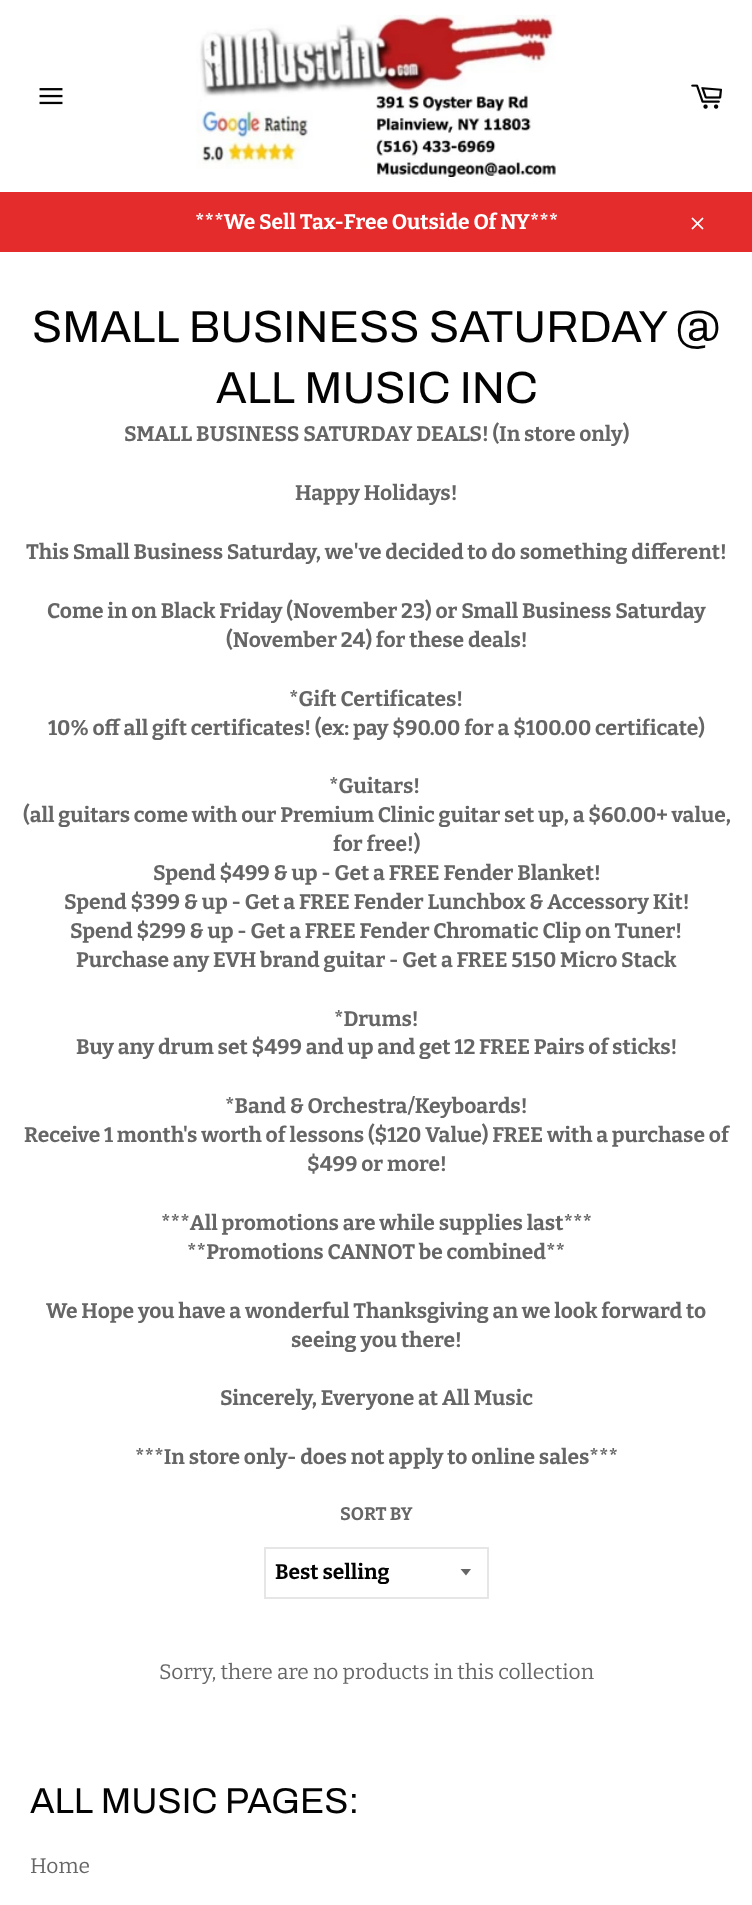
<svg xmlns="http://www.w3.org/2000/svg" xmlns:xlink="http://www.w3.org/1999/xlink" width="752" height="1905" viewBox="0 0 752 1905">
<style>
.cls-1{font:bold 21px Bitter;fill:#ffffff}
.cls-2{font:45px Archivo;fill:#030303}
.cls-3{font:bold 21px Bitter;fill:#666666}
.cls-4{font:bold 18px Bitter;fill:#666666}
.cls-5{font:bold 21px Bitter;fill:#030303}
.cls-6{font:21px Bitter;fill:#666666}
.cls-7{font:36px Archivo;fill:#030303}
</style>
<rect width="100%" height="100%" fill="#ffffff"/>
<image xlink:href="image0.png" x="39" y="88" width="24" height="17"/>
<image xlink:href="image1.png" x="196" y="15" width="360" height="162"/>
<image xlink:href="image2.png" x="691" y="84" width="31" height="25"/>
<rect fill="#e32c2b" x="0" y="192" width="752" height="60"/>
<image xlink:href="image3.png" x="691" y="217" width="13" height="13"/>
<path fill="#666666" d="M460.5 1569L466 1575.5L471 1569Z"/>
<rect fill="none" stroke="#e6e6e6" stroke-width="2" x="265" y="1548" width="223" height="50"/>
<text class="cls-1" x="195" y="229">***We Sell Tax-Free Outside Of NY***</text>
<text class="cls-2" x="32" y="342">SMALL BUSINESS SATURDAY @</text>
<text class="cls-2" x="216" y="403">ALL MUSIC INC</text>
<text class="cls-3" x="124" y="441">SMALL BUSINESS SATURDAY DEALS! (In store only)</text>
<text class="cls-3" x="295" y="500">Happy Holidays!</text>
<text class="cls-3" x="26" y="559">This Small Business Saturday, we've decided to do something different!</text>
<text class="cls-3" x="47" y="618">Come in on Black Friday (November 23) or Small Business Saturday</text>
<text class="cls-3" x="226" y="647">(November 24) for these deals!</text>
<text class="cls-3" x="289" y="706">*Gift Certificates!</text>
<text class="cls-3" x="48" y="735">10% off all gift certificates! (ex: pay $90.00 for a $100.00 certificate)</text>
<text class="cls-3" x="329" y="793">*Guitars!</text>
<text class="cls-3" x="23" y="822">(all guitars come with our Premium Clinic guitar set up, a $60.00+ value,</text>
<text class="cls-3" x="333" y="851">for free!)</text>
<text class="cls-3" x="153" y="880">Spend $499 &amp; up - Get a FREE Fender Blanket!</text>
<text class="cls-3" x="64" y="909">Spend $399 &amp; up - Get a FREE Fender Lunchbox &amp; Accessory Kit!</text>
<text class="cls-3" x="70" y="938">Spend $299 &amp; up - Get a FREE Fender Chromatic Clip on Tuner!</text>
<text class="cls-3" x="76" y="967">Purchase any EVH brand guitar - Get a FREE 5150 Micro Stack</text>
<text class="cls-3" x="334" y="1026">*Drums!</text>
<text class="cls-3" x="76" y="1054">Buy any drum set $499 and up and get 12 FREE Pairs of sticks!</text>
<text class="cls-3" x="225" y="1113">*Band &amp; Orchestra/Keyboards!</text>
<text class="cls-3" x="24" y="1142">Receive 1 month's worth of lessons ($120 Value) FREE with a purchase of</text>
<text class="cls-3" x="307" y="1171">$499 or more!</text>
<text class="cls-3" x="161" y="1230">***All promotions are while supplies last***</text>
<text class="cls-3" x="187" y="1259">**Promotions CANNOT be combined**</text>
<text class="cls-3" x="46" y="1318">We Hope you have a wonderful Thanksgiving an we look forward to</text>
<text class="cls-3" x="291" y="1347">seeing you there!</text>
<text class="cls-3" x="220" y="1405">Sincerely, Everyone at All Music</text>
<text class="cls-3" x="135" y="1464">***In store only- does not apply to online sales***</text>
<text class="cls-4" x="340" y="1520">SORT BY</text>
<text class="cls-5" x="275" y="1579">Best selling</text>
<text class="cls-6" x="159" y="1679">Sorry, there are no products in this collection</text>
<text class="cls-7" x="30" y="1813">ALL MUSIC PAGES:</text>
<text class="cls-6" x="30" y="1873">Home</text>
</svg>
